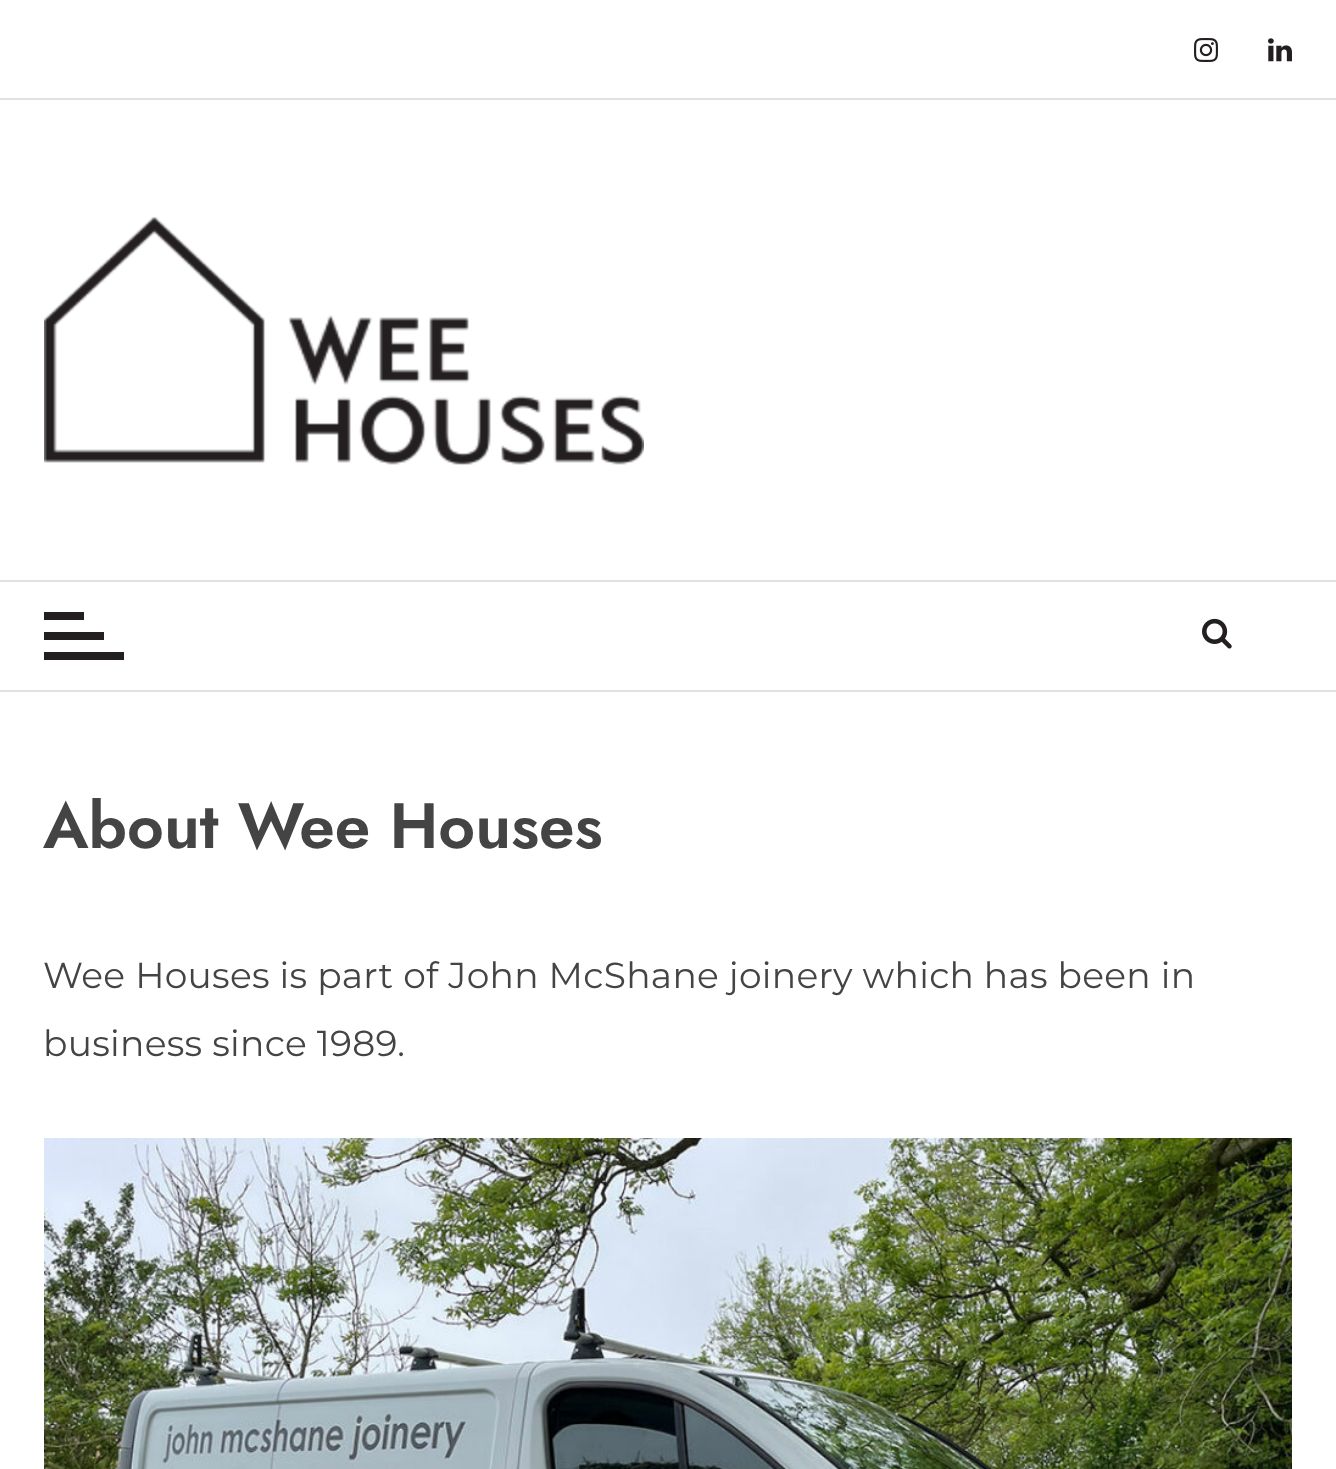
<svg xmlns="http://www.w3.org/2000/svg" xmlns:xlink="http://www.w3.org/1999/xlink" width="1336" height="1469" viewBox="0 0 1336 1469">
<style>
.cls-1{font:600 64px Jost;fill:#444444}
.cls-2{font:36px Montserrat;letter-spacing:0.3px;fill:#444444}
</style>
<rect width="100%" height="100%" fill="#ffffff"/>
<rect fill="#e1e1e1" x="0" y="98" width="1336" height="2"/>
<image xlink:href="image0.png" x="1194" y="38" width="24" height="24"/>
<image xlink:href="image1.png" x="1268" y="38" width="24" height="24"/>
<image xlink:href="image2.png" x="44" y="216" width="600" height="249"/>
<rect fill="#e1e1e1" x="0" y="580" width="1336" height="2"/>
<rect fill="#e1e1e1" x="0" y="690" width="1336" height="2"/>
<rect fill="#231f20" x="44" y="612" width="40" height="8"/>
<rect fill="#231f20" x="44" y="632" width="60" height="8"/>
<rect fill="#231f20" x="44" y="652" width="80" height="8"/>
<image xlink:href="image3.png" x="1202" y="618" width="30" height="31"/>
<image xlink:href="image4.png" x="44" y="1138" width="1248" height="331"/>
<text class="cls-1" x="43" y="848">About Wee Houses</text>
<text class="cls-2"><tspan x="43" y="988">Wee Houses is part of John McShane joinery which has been in</tspan><tspan x="43" y="1056">business since 1989.</tspan></text>
</svg>
